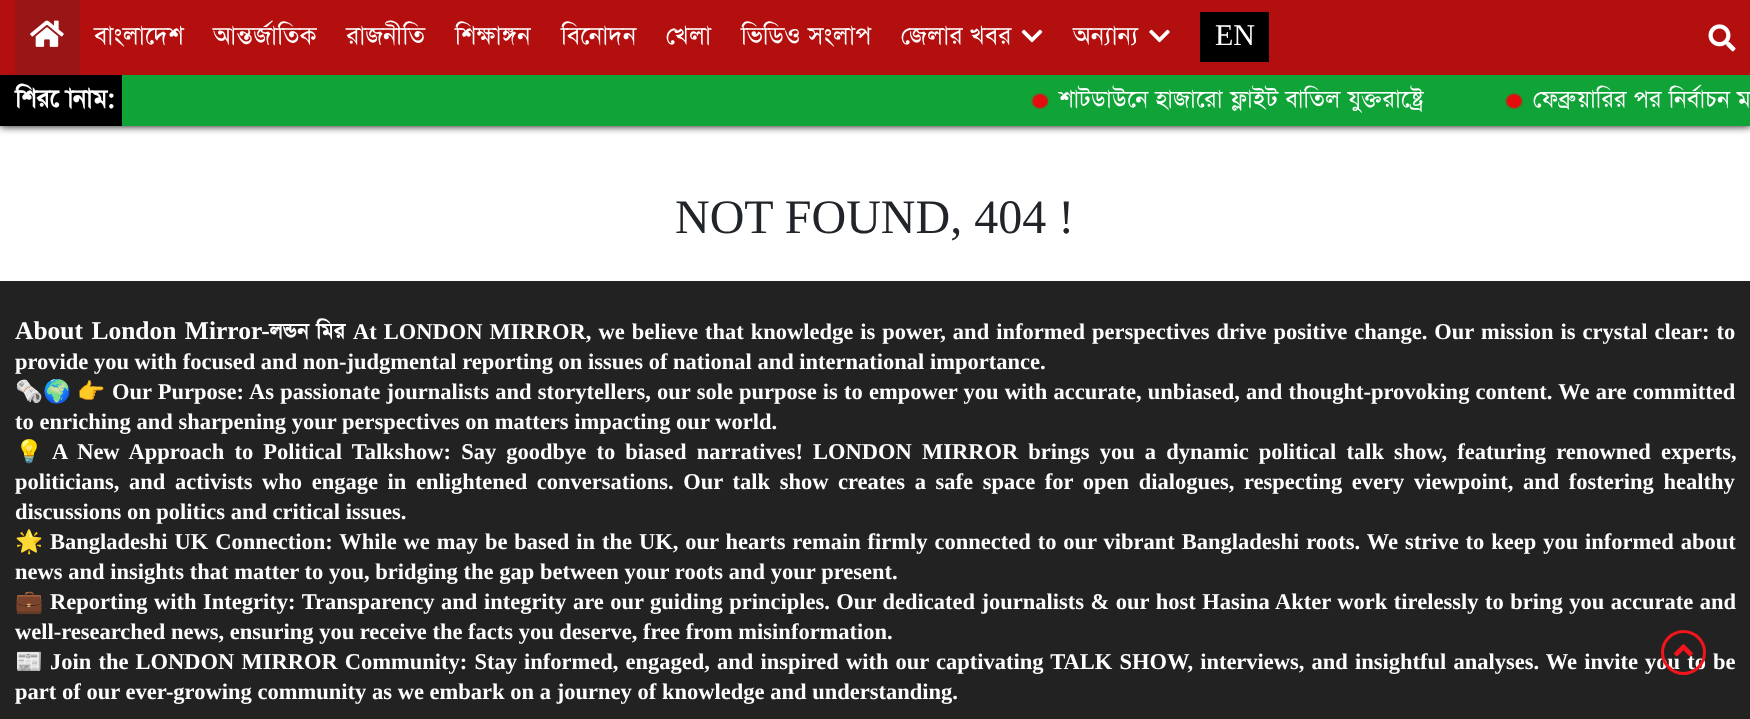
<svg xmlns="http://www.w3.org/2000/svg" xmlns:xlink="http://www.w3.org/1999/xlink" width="1750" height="719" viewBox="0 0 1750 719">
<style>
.cls-1{font:30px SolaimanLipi;fill:#ffffff}
.cls-2{font:30px Liberation Serif;fill:#ffffff}
.cls-3{font:bold 30px SolaimanLipi;fill:#ffffff}
.cls-4{font:28.5px SolaimanLipi;fill:#ffffff}
.cls-5{font:48px Liberation Serif;fill:#212529}
.cls-6{font:bold 25.5px Liberation Serif;fill:#ffffff}
.cls-7{font:bold 25.5px SolaimanLipi;fill:#ffffff}
.cls-8{font:bold 22.5px Liberation Serif;fill:#ffffff}
.cls-9{font:bold 22.5px Noto Color Emoji;fill:#ffffff}
</style>
<rect width="100%" height="100%" fill="#ffffff"/>
<rect fill="#000000" filter="blur(4px)" x="0" y="0" width="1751" height="126"/>
<rect fill="#b30f0f" x="0" y="0" width="1750" height="75"/>
<rect fill="#9a1515" x="15" y="0" width="65" height="75"/>
<image xlink:href="image0.png" x="30" y="20" width="34" height="27"/>
<image xlink:href="image1.png" x="1021" y="29" width="22" height="14"/>
<image xlink:href="image2.png" x="1149" y="29" width="21" height="14"/>
<rect fill="#000000" x="1200" y="12" width="69" height="50"/>
<image xlink:href="image3.png" x="1708" y="24" width="28" height="28"/>
<rect fill="#10a337" x="122" y="75" width="1628" height="51"/>
<rect fill="#000000" x="0" y="75" width="122" height="51"/>
<image xlink:href="image4.png" x="1031" y="93" width="18" height="17"/>
<image xlink:href="image4.png" x="1505" y="93" width="18" height="17"/>
<rect fill="#222222" x="0" y="281" width="1750" height="438"/>
<text class="cls-1" x="94" y="45">বাংলাদেশ</text>
<text class="cls-1" x="213" y="45">আন্তর্জাতিক</text>
<text class="cls-1" x="346" y="45">রাজনীতি</text>
<text class="cls-1" x="455" y="45">শিক্ষাঙ্গন</text>
<text class="cls-1" x="561" y="45">বিনোদন</text>
<text class="cls-1" x="666" y="45">খেলা</text>
<text class="cls-1" x="741" y="45">ভিডিও সংলাপ</text>
<text class="cls-1" x="901" y="45">জেলার খবর</text>
<text class="cls-1" x="1073" y="45">অন্যান্য</text>
<text class="cls-2" x="1215" y="45">EN</text>
<text class="cls-3" x="15" y="108">শিরোনাম:</text>
<text class="cls-4" x="1059" y="108">শাটডাউনে হাজারো ফ্লাইট বাতিল যুক্তরাষ্ট্রে</text>
<text class="cls-4" x="1533" y="108">ফেব্রুয়ারির পর নির্বাচন মা</text>
<text class="cls-5" x="675" y="233">NOT FOUND, 404 !</text>
<text class="cls-6" x="15" y="339" word-spacing="2">About London Mirror-</text>
<text class="cls-7" x="269" y="339">লন্ডন</text>
<text class="cls-7" x="316" y="339">মির</text>
<text class="cls-8" x="353" y="339" word-spacing="1.4">At LONDON MIRROR, we believe that knowledge is power, and informed perspectives drive positive change. Our mission is crystal clear: to</text>
<text class="cls-8" x="15" y="369">provide you with focused and non-judgmental reporting on issues of national and international importance.</text>
<text class="cls-9" x="15" y="399">🗞️🌍</text>
<text class="cls-9" x="77" y="399">👉</text>
<text class="cls-8" x="112" y="399" word-spacing="0.6">Our Purpose: As passionate journalists and storytellers, our sole purpose is to empower you with accurate, unbiased, and thought-provoking content. We are committed</text>
<text class="cls-8" x="15" y="429" word-spacing="0.1">to enriching and sharpening your perspectives on matters impacting our world.</text>
<text class="cls-9" x="15" y="459">💡</text>
<text class="cls-8" x="52" y="459" word-spacing="4.5">A New Approach to Political Talkshow: Say goodbye to biased narratives! LONDON MIRROR brings you a dynamic political talk show, featuring renowned experts,</text>
<text class="cls-8"><tspan x="15" y="489" word-spacing="4">politicians, and activists who engage in enlightened conversations. Our talk show creates a safe space for open dialogues, respecting every viewpoint, and fostering healthy</tspan><tspan x="15" y="519">discussions on politics and critical issues.</tspan></text>
<text class="cls-9" x="15" y="549">🌟</text>
<text class="cls-8" x="50" y="549" word-spacing="1.3">Bangladeshi UK Connection: While we may be based in the UK, our hearts remain firmly connected to our vibrant Bangladeshi roots. We strive to keep you informed about</text>
<text class="cls-8" x="15" y="579" word-spacing="0.1">news and insights that matter to you, bridging the gap between your roots and your present.</text>
<text class="cls-9" x="15" y="609">💼</text>
<text class="cls-8" x="50" y="609" word-spacing="0.9">Reporting with Integrity: Transparency and integrity are our guiding principles. Our dedicated journalists &amp; our host Hasina Akter work tirelessly to bring you accurate and</text>
<text class="cls-8" x="15" y="639">well-researched news, ensuring you receive the facts you deserve, free from misinformation.</text>
<text class="cls-9" x="15" y="669">📰</text>
<text class="cls-8" x="50" y="669" word-spacing="1.5">Join the LONDON MIRROR Community: Stay informed, engaged, and inspired with our captivating TALK SHOW, interviews, and insightful analyses. We invite you to be</text>
<circle fill="none" stroke="#f3151c" stroke-width="3" cx="1683.5" cy="652.5" r="21"/>
<image xlink:href="image5.png" x="1674" y="644" width="19" height="13"/>
<text class="cls-8" x="15" y="699" word-spacing="0.1">part of our ever-growing community as we embark on a journey of knowledge and understanding.</text>
</svg>
